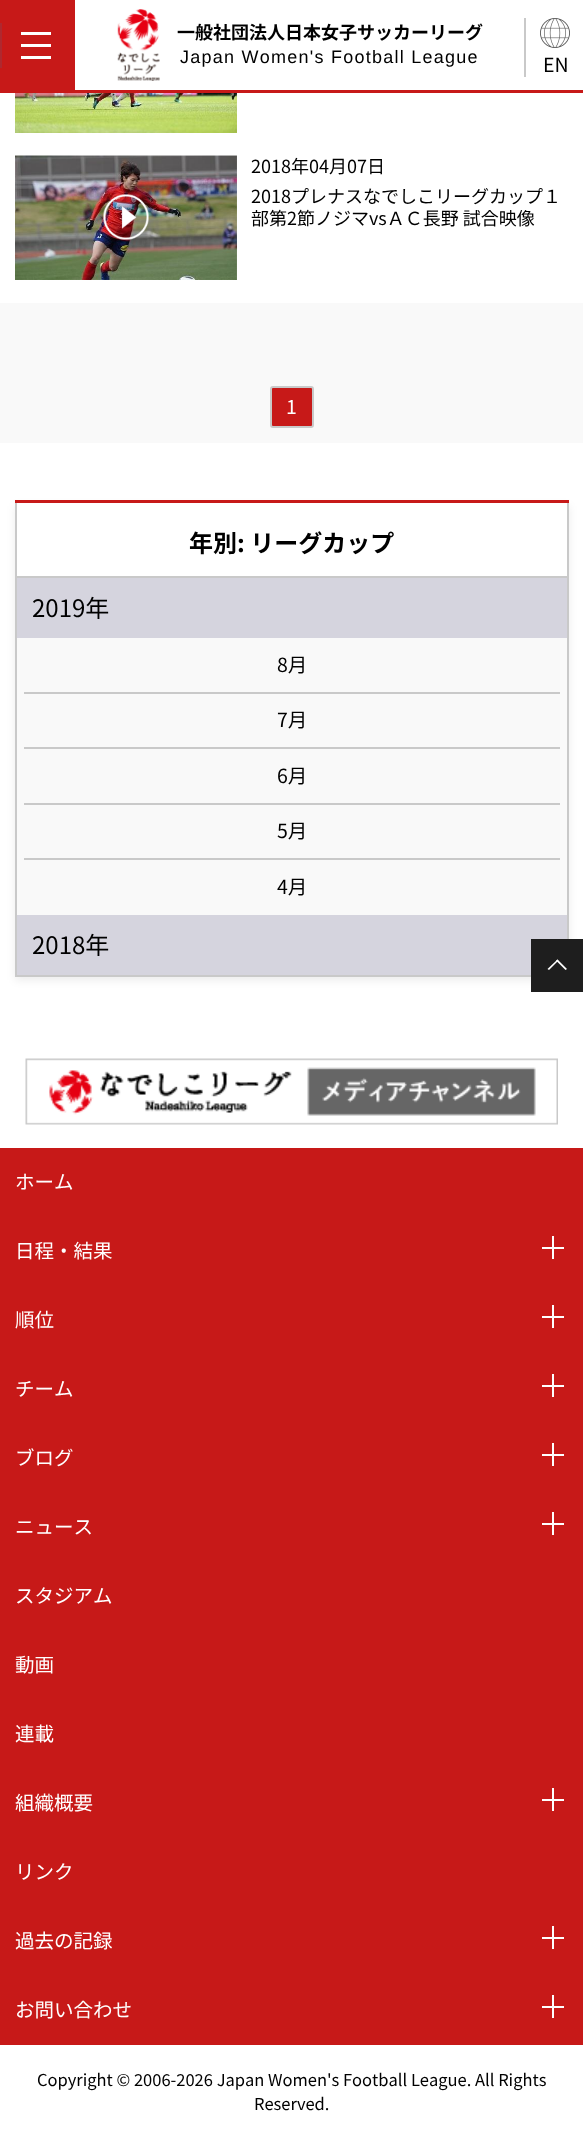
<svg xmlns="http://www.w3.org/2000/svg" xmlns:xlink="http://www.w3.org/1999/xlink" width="583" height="2145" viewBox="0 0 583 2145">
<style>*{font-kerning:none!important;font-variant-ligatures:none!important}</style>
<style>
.cls-1{font:bold 18px Noto Sans JP;fill:#000000}
.cls-2{font:18px Liberation Sans;letter-spacing:1.25px;fill:#000000}
.cls-3{font:19.5px Noto Sans JP;fill:#000000}
.cls-4{font:18px Noto Sans JP;fill:#000000}
.cls-5{font:19.5px Noto Sans JP;fill:#ffffff}
.cls-6{font:bold 24px Noto Sans JP;fill:#000000}
.cls-7{font:24px Noto Sans JP;fill:#000000}
.cls-8{font:16.5px Noto Sans JP;fill:#000000}
</style>
<defs>
<clipPath id="clip1"><path d="M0 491H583V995H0ZM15 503H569V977H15Z" clip-rule="evenodd"/></clipPath>
</defs>
<rect width="100%" height="100%" fill="#ffffff"/>
<rect fill="#c71918" x="0" y="90" width="583" height="3"/>
<rect fill="#c71918" x="0" y="0" width="75" height="90"/>
<rect fill="#af282f" x="0" y="23" width="2" height="45"/>
<rect fill="#ffffff" x="21" y="32" width="30" height="3"/>
<rect fill="#ffffff" x="21" y="44" width="30" height="3"/>
<rect fill="#ffffff" x="21" y="56" width="30" height="3"/>
<image xlink:href="image0.png" x="117" y="9" width="43" height="72"/>
<rect fill="#c9c9c9" x="524" y="18" width="2" height="59"/>
<image xlink:href="image1.png" x="540" y="18" width="30" height="30"/>
<image xlink:href="image2.png" x="15" y="93" width="222" height="40"/>
<image xlink:href="image3.png" x="15" y="155" width="222" height="125"/>
<image xlink:href="image4.png" x="103" y="194" width="46" height="46"/>
<rect fill="#f9f9f9" x="0" y="303" width="583" height="140"/>
<rect fill="#c71918" stroke="#c9c9c9" stroke-width="2" x="271" y="387" width="42" height="40" rx="2"/>
<g clip-path="url(#clip1)">
<rect fill="#000000" fill-opacity="0.08" filter="blur(4.5px)" x="15" y="506" width="554" height="474"/>
</g>
<rect fill="#c9c9c9" x="567" y="503" width="2" height="436"/>
<rect fill="#c9c9c9" x="15" y="975" width="516" height="2"/>
<rect fill="#c9c9c9" x="15" y="503" width="2" height="474"/>
<rect fill="#c71918" x="15" y="500" width="554" height="3"/>
<rect fill="#c9c9c9" x="17" y="576" width="550" height="2"/>
<rect fill="#f9f9f9" x="17" y="638" width="550" height="277"/>
<rect fill="#d5d4de" x="17" y="578" width="550" height="60"/>
<rect fill="#c9c9c9" x="24" y="692" width="536" height="2"/>
<rect fill="#c9c9c9" x="24" y="747" width="536" height="2"/>
<rect fill="#c9c9c9" x="24" y="803" width="536" height="2"/>
<rect fill="#c9c9c9" x="24" y="858" width="536" height="2"/>
<rect fill="#d5d4de" x="17" y="915" width="550" height="60"/>
<rect fill="#1e1e1e" x="531" y="939" width="52" height="53"/>
<path fill="#ffffff" d="M557.5 959.5L567 969L565.5 970L556 960.5Z"/>
<path fill="#ffffff" d="M557.5 959.5L558.5 960.5L549 970L547.5 969Z"/>
<image xlink:href="image5.png" x="25" y="1058" width="533" height="67"/>
<rect fill="#c71918" x="0" y="1148" width="583" height="897"/>
<rect fill="#ffffff" x="552" y="1236" width="2" height="23"/>
<rect fill="#ffffff" x="542" y="1247" width="22" height="2"/>
<rect fill="#ffffff" x="552" y="1305" width="2" height="23"/>
<rect fill="#ffffff" x="542" y="1316" width="22" height="2"/>
<rect fill="#ffffff" x="552" y="1374" width="2" height="23"/>
<rect fill="#ffffff" x="542" y="1385" width="22" height="2"/>
<rect fill="#ffffff" x="552" y="1443" width="2" height="23"/>
<rect fill="#ffffff" x="542" y="1454" width="22" height="2"/>
<rect fill="#ffffff" x="552" y="1512" width="2" height="23"/>
<rect fill="#ffffff" x="542" y="1523" width="22" height="2"/>
<rect fill="#ffffff" x="552" y="1788" width="2" height="23"/>
<rect fill="#ffffff" x="542" y="1799" width="22" height="2"/>
<rect fill="#ffffff" x="552" y="1926" width="2" height="23"/>
<rect fill="#ffffff" x="542" y="1937" width="22" height="2"/>
<rect fill="#ffffff" x="552" y="1995" width="2" height="23"/>
<rect fill="#ffffff" x="542" y="2006" width="22" height="2"/>
<text class="cls-1" x="177" y="39">一般社団法人日本女子サッカーリーグ</text>
<text class="cls-2" x="180" y="63">Japan Women's Football League</text>
<text class="cls-3" x="543" y="72">EN</text>
<text class="cls-4"><tspan x="251" y="173">2018年04月07日</tspan><tspan x="251" y="203">2018プレナスなでしこリーグカップ１</tspan><tspan x="251" y="225">部第2節ノジマvsＡＣ長野 試合映像</tspan></text>
<text class="cls-5" x="286" y="414">1</text>
<text class="cls-6" x="189" y="552">年別: リーグカップ</text>
<text class="cls-7" x="32" y="617">2019年</text>
<text class="cls-3" x="277" y="672">8月</text>
<text class="cls-3" x="277" y="727">7月</text>
<text class="cls-3" x="277" y="783">6月</text>
<text class="cls-3" x="277" y="838">5月</text>
<text class="cls-3" x="277" y="894">4月</text>
<text class="cls-7" x="32" y="954">2018年</text>
<text class="cls-5" x="15" y="1189">ホーム</text>
<text class="cls-5" x="15" y="1258">日程・結果</text>
<text class="cls-5" x="15" y="1327">順位</text>
<text class="cls-5" x="15" y="1396">チーム</text>
<text class="cls-5" x="15" y="1465">ブログ</text>
<text class="cls-5" x="15" y="1534">ニュース</text>
<text class="cls-5" x="15" y="1603">スタジアム</text>
<text class="cls-5" x="15" y="1672">動画</text>
<text class="cls-5" x="15" y="1741">連載</text>
<text class="cls-5" x="15" y="1810">組織概要</text>
<text class="cls-5" x="15" y="1879">リンク</text>
<text class="cls-5" x="15" y="1948">過去の記録</text>
<text class="cls-5" x="15" y="2017">お問い合わせ</text>
<text class="cls-8" x="37" y="2086">Copyright © 2006-2026 Japan Women's Football League. All Rights</text>
<text class="cls-8" x="254" y="2110">Reserved.</text>
</svg>
